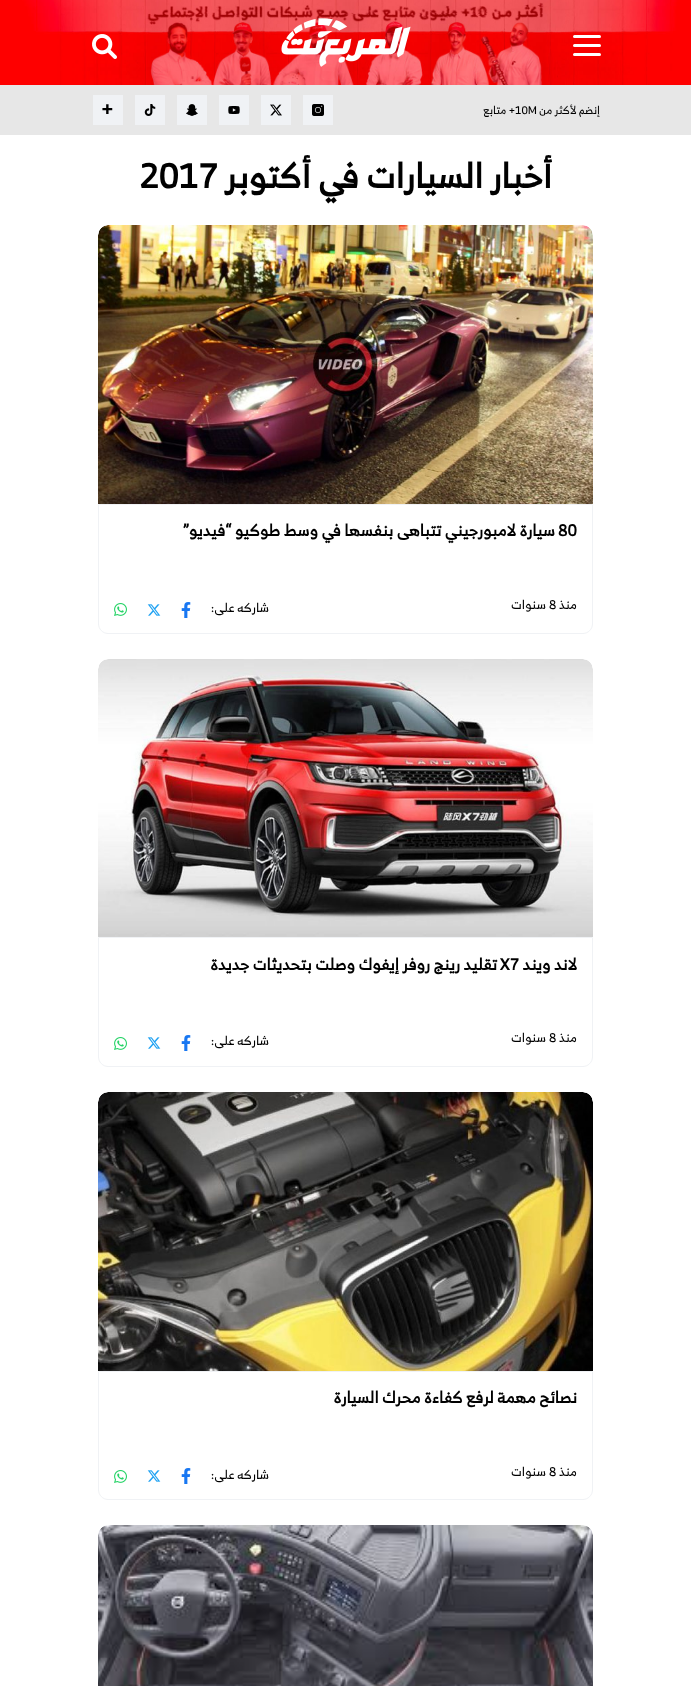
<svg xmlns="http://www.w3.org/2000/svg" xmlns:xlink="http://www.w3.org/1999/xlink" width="691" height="1686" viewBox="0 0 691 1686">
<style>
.cls-1{font:11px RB;direction:rtl;fill:#000000}
.cls-2{font:11px RB;fill:#000000}
.cls-3{font:bold 21px RB;fill:#000000}
.cls-4{font:bold 34px RB;direction:rtl;fill:#000000}
.cls-5{font:bold 34px RB;fill:#000000}
.cls-6{font:bold 16px RB;fill:#000000}
.cls-7{font:bold 16px RB;direction:rtl;fill:#000000}
.cls-8{font:12.5px RB;direction:rtl;fill:#000000}
.cls-9{font:12.5px RB;fill:#000000}
</style>
<rect width="100%" height="100%" fill="#ffffff"/>
<image xlink:href="image0.png" x="0" y="0" width="691" height="85"/>
<rect fill="#ffffff" x="573" y="35" width="28" height="3" rx="1.5"/>
<rect fill="#ffffff" x="573" y="44" width="28" height="3" rx="1.5"/>
<rect fill="#ffffff" x="573" y="53" width="28" height="3" rx="1.5"/>
<image xlink:href="image1.png" x="281" y="18" width="130" height="49"/>
<image xlink:href="image2.png" x="92" y="34" width="25" height="25"/>
<rect fill="#e7e7e7" x="0" y="85" width="691" height="50"/>
<rect fill="#f0f2f5" x="303" y="95" width="30" height="30"/>
<image xlink:href="image3.png" x="312" y="104" width="12" height="12"/>
<rect fill="#f0f2f5" x="261" y="95" width="30" height="30"/>
<image xlink:href="image4.png" x="270" y="104" width="12" height="12"/>
<rect fill="#f0f2f5" x="219" y="95" width="30" height="30"/>
<image xlink:href="image5.png" x="228" y="106" width="12" height="8"/>
<rect fill="#f0f2f5" x="177" y="95" width="30" height="30"/>
<image xlink:href="image6.png" x="186" y="104" width="12" height="12"/>
<rect fill="#f0f2f5" x="135" y="95" width="30" height="30"/>
<image xlink:href="image7.png" x="144" y="104" width="12" height="12"/>
<rect fill="#f0f2f5" x="93" y="95" width="30" height="30"/>
<image xlink:href="image8.png" x="98" y="225" width="495" height="279"/>
<path fill="none" stroke="#f0f2f5" d="M98.5 504.5H592.5V624C592.5 629 588 633.5 583 633.5H108C103 633.5 98.5 629 98.5 624Z"/>
<image xlink:href="image9.png" x="181" y="602" width="10" height="16"/>
<image xlink:href="image10.png" x="147" y="604" width="14" height="12"/>
<image xlink:href="image11.png" x="114" y="603" width="13" height="13"/>
<image xlink:href="image12.png" x="98" y="659" width="495" height="278"/>
<path fill="none" stroke="#f0f2f5" d="M98.5 937.5H592.5V1057C592.5 1062 588 1066.5 583 1066.5H108C103 1066.5 98.5 1062 98.5 1057Z"/>
<image xlink:href="image9.png" x="181" y="1035" width="10" height="16"/>
<image xlink:href="image10.png" x="147" y="1037" width="14" height="12"/>
<image xlink:href="image11.png" x="114" y="1037" width="13" height="13"/>
<image xlink:href="image13.png" x="98" y="1092" width="495" height="279"/>
<path fill="none" stroke="#f0f2f5" d="M98.5 1371.5H592.5V1490C592.5 1495 588 1499.5 583 1499.5H108C103 1499.5 98.5 1495 98.5 1490Z"/>
<image xlink:href="image9.png" x="181" y="1468" width="10" height="16"/>
<image xlink:href="image10.png" x="147" y="1470" width="14" height="12"/>
<image xlink:href="image11.png" x="114" y="1470" width="13" height="13"/>
<image xlink:href="image14.png" x="98" y="1525" width="495" height="161"/>
<text class="cls-1" x="600" y="114">إنضم لأكثر من</text>
<text class="cls-2" x="515" y="114">10M</text>
<text class="cls-1" x="515" y="114">+ متابع</text>
<text class="cls-3" x="101" y="116">+</text>
<text class="cls-4" x="552" y="188">أخبار السيارات في أكتوبر</text>
<text class="cls-5" x="139" y="188">2017</text>
<text class="cls-6" x="558" y="536">80</text>
<text class="cls-7" x="555" y="536">سيارة لامبورجيني تتباهى بنفسها في وسط طوكيو “فيديو”</text>
<text class="cls-8" x="577" y="609">منذ</text>
<text class="cls-9" x="549" y="609">8</text>
<text class="cls-8" x="546" y="609">سنوات</text>
<text class="cls-8" x="269" y="612">شاركه على:</text>
<text class="cls-7" x="577" y="970">لاند ويند</text>
<text class="cls-6" x="500" y="970">X7</text>
<text class="cls-7" x="497" y="970">تقليد رينج روفر إيفوك وصلت بتحديثات جديدة</text>
<text class="cls-8" x="577" y="1042">منذ</text>
<text class="cls-9" x="549" y="1042">8</text>
<text class="cls-8" x="546" y="1042">سنوات</text>
<text class="cls-8" x="269" y="1045">شاركه على:</text>
<text class="cls-7" x="577" y="1403">نصائح مهمة لرفع كفاءة محرك السيارة</text>
<text class="cls-8" x="577" y="1476">منذ</text>
<text class="cls-9" x="549" y="1476">8</text>
<text class="cls-8" x="546" y="1476">سنوات</text>
<text class="cls-8" x="269" y="1479">شاركه على:</text>
</svg>
